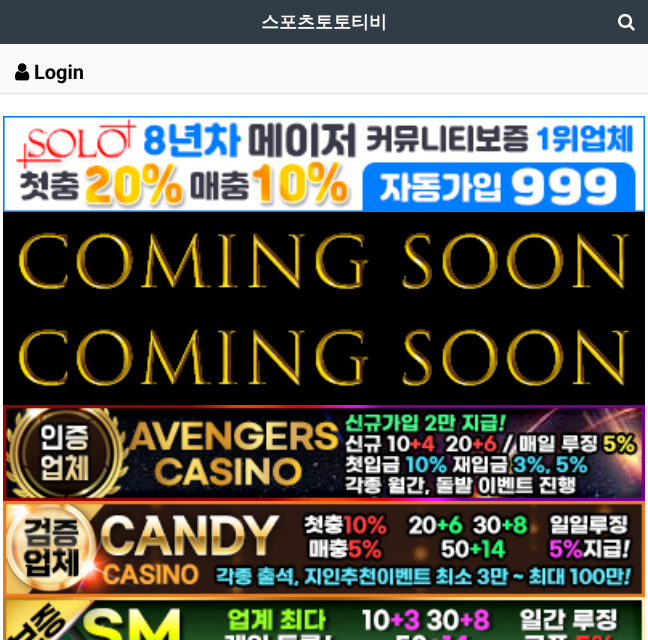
<svg xmlns="http://www.w3.org/2000/svg" xmlns:xlink="http://www.w3.org/1999/xlink" width="648" height="640" viewBox="0 0 648 640">
<style>
.cls-1{font:bold 18px WenQuanYi Zen Hei;fill:#ffffff}
.cls-2{font:bold 20px Roboto;fill:#000000}
</style>
<rect width="100%" height="100%" fill="#ffffff"/>
<rect fill="#323c46" x="0" y="0" width="648" height="44"/>
<image xlink:href="image0.png" x="618" y="13" width="17" height="18"/>
<rect fill="#fafafa" x="0" y="44" width="648" height="49"/>
<rect fill="#dfdfdf" x="0" y="93" width="648" height="1"/>
<image xlink:href="image1.png" x="15" y="63" width="15" height="18"/>
<image xlink:href="image2.png" x="3" y="116" width="642" height="96"/>
<image xlink:href="image3.png" x="3" y="212" width="642" height="96"/>
<image xlink:href="image4.png" x="3" y="308" width="642" height="97"/>
<image xlink:href="image5.png" x="3" y="405" width="642" height="96"/>
<image xlink:href="image6.png" x="3" y="501" width="642" height="96"/>
<image xlink:href="image7.png" x="3" y="597" width="642" height="43"/>
<text class="cls-1" x="261" y="28">스포츠토토티비</text>
<text class="cls-2" x="34" y="79">Login</text>
</svg>
